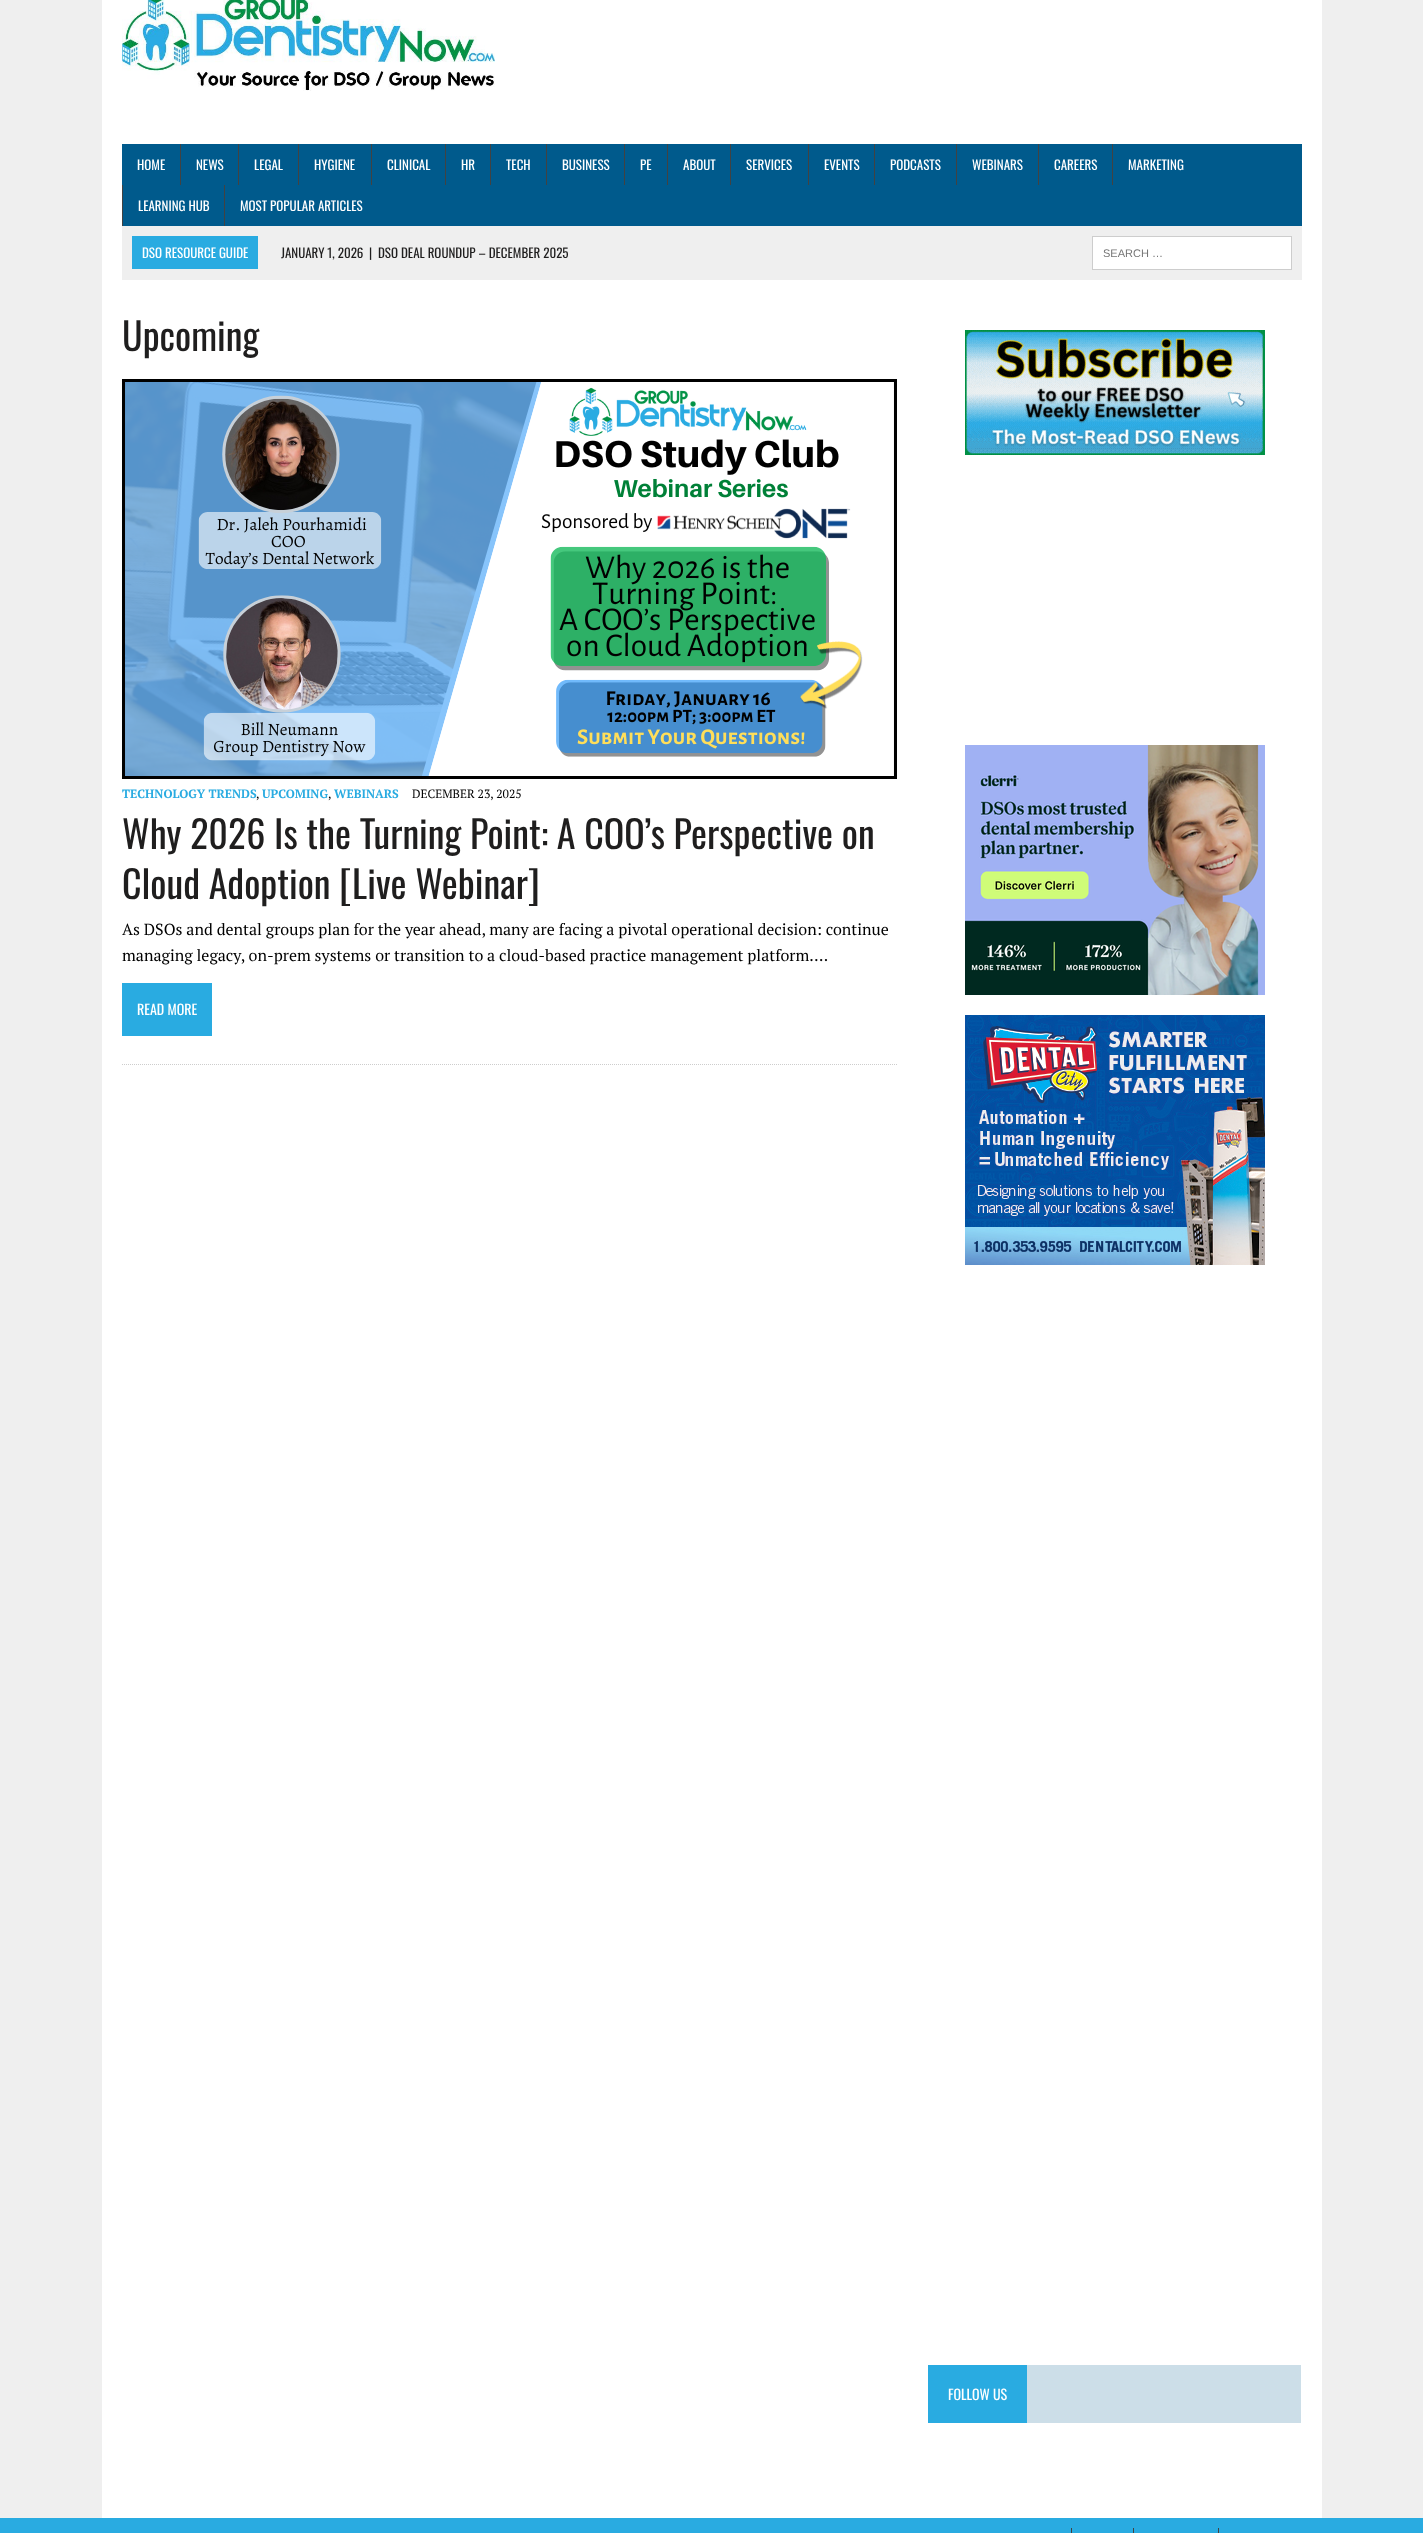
<svg xmlns="http://www.w3.org/2000/svg" xmlns:xlink="http://www.w3.org/1999/xlink" width="1423" height="2533" viewBox="0 0 1423 2533">
<style>
.cls-1{font:13px Oswald;fill:#ffffff}
.cls-2{font:13px Oswald;fill:#1f1e1e}
.cls-3{font:11px Liberation Sans;fill:#757575}
.cls-4{font:38px Oswald;fill:#1f1e1e}
.cls-5{font:bold 12px PT Serif;fill:#29abe1}
.cls-6{font:12px PT Serif;fill:#000000}
.cls-7{font:16px PT Serif;fill:#000000}
.cls-8{font:14px Oswald;fill:#ffffff}
</style>
<defs>
<clipPath id="clip1"><rect x="122" y="310" width="776" height="775"/></clipPath>
</defs>
<rect width="100%" height="100%" fill="#efefef"/>
<rect fill="#ffffff" x="102" y="0" width="1220" height="2518"/>
<image xlink:href="image0.png" x="122" y="0" width="373" height="91"/>
<rect fill="#005a8c" x="122" y="144" width="1180" height="82"/>
<rect fill="#424242" x="180" y="144" width="1" height="41"/>
<rect fill="#424242" x="238" y="144" width="1" height="41"/>
<rect fill="#424242" x="298" y="144" width="1" height="41"/>
<rect fill="#424242" x="371" y="144" width="1" height="41"/>
<rect fill="#424242" x="445" y="144" width="1" height="41"/>
<rect fill="#424242" x="490" y="144" width="1" height="41"/>
<rect fill="#424242" x="546" y="144" width="1" height="41"/>
<rect fill="#424242" x="624" y="144" width="1" height="41"/>
<rect fill="#424242" x="667" y="144" width="1" height="41"/>
<rect fill="#424242" x="730" y="144" width="1" height="41"/>
<rect fill="#424242" x="808" y="144" width="1" height="41"/>
<rect fill="#424242" x="874" y="144" width="1" height="41"/>
<rect fill="#424242" x="956" y="144" width="1" height="41"/>
<rect fill="#424242" x="1038" y="144" width="1" height="41"/>
<rect fill="#424242" x="1112" y="144" width="1" height="41"/>
<rect fill="#424242" x="122" y="185" width="1" height="41"/>
<rect fill="#424242" x="224" y="185" width="1" height="41"/>
<rect fill="#efefef" x="122" y="226" width="1180" height="54"/>
<rect fill="#29abe1" x="132" y="236" width="126" height="33"/>
<rect fill="#ffffff" stroke="#cdcdcd" x="1092.5" y="236.5" width="199" height="33"/>
<image xlink:href="image1.png" x="122" y="379" width="775" height="400"/>
<rect fill="#29abe1" x="122" y="983" width="90" height="53"/>
<path fill="none" stroke="#cdcdcd" stroke-dasharray="1 1" d="M122 1064.5H898"/>
<image xlink:href="image2.png" x="965" y="330" width="300" height="125"/>
<image xlink:href="image3.png" x="965" y="745" width="300" height="250"/>
<image xlink:href="image4.png" x="965" y="1015" width="300" height="250"/>
<rect fill="#ccdee8" x="1027" y="2365" width="274" height="58"/>
<rect fill="#29abe1" x="928" y="2365" width="99" height="58"/>
<rect fill="#29abe1" x="0" y="2518" width="1423" height="15"/>
<rect fill="#424242" x="1071" y="2528" width="1" height="5"/>
<rect fill="#424242" x="1133" y="2528" width="1" height="5"/>
<rect fill="#424242" x="1218" y="2528" width="1" height="5"/>
<text class="cls-1" x="137" y="170">HOME</text>
<text class="cls-1" x="196" y="170">NEWS</text>
<text class="cls-1" x="254" y="170">LEGAL</text>
<text class="cls-1" x="314" y="170">HYGIENE</text>
<text class="cls-1" x="387" y="170">CLINICAL</text>
<text class="cls-1" x="461" y="170">HR</text>
<text class="cls-1" x="506" y="170">TECH</text>
<text class="cls-1" x="562" y="170">BUSINESS</text>
<text class="cls-1" x="640" y="170">PE</text>
<text class="cls-1" x="683" y="170">ABOUT</text>
<text class="cls-1" x="746" y="170">SERVICES</text>
<text class="cls-1" x="824" y="170">EVENTS</text>
<text class="cls-1" x="890" y="170">PODCASTS</text>
<text class="cls-1" x="972" y="170">WEBINARS</text>
<text class="cls-1" x="1054" y="170">CAREERS</text>
<text class="cls-1" x="1128" y="170">MARKETING</text>
<text class="cls-1" x="138" y="211">LEARNING HUB</text>
<text class="cls-1" x="240" y="211">MOST POPULAR ARTICLES</text>
<text class="cls-1" x="142" y="258">DSO RESOURCE GUIDE</text>
<text class="cls-2" x="281" y="258">JANUARY 1, 2026</text>
<text class="cls-2" x="369" y="258">|</text>
<text class="cls-2" x="378" y="258">DSO DEAL ROUNDUP – DECEMBER 2025</text>
<text class="cls-3" x="1103" y="257">SEARCH …</text>
<text class="cls-4" x="122" y="351">Upcoming</text>
<g clip-path="url(#clip1)">
<text class="cls-5" x="122" y="798">TECHNOLOGY TRENDS</text>
</g>
<text class="cls-6" x="256" y="798">,</text>
<text class="cls-5" x="262" y="798">UPCOMING</text>
<text class="cls-6" x="328" y="798">,</text>
<text class="cls-5" x="334" y="798">WEBINARS</text>
<text class="cls-6" x="412" y="798">DECEMBER 23, 2025</text>
<text class="cls-4"><tspan x="122" y="849">Why 2026 Is the Turning Point: A COO’s Perspective on</tspan><tspan x="122" y="899">Cloud Adoption [Live Webinar]</tspan></text>
<text class="cls-7"><tspan x="122" y="935">As DSOs and dental groups plan for the year ahead, many are facing a pivotal operational decision: continue</tspan><tspan x="122" y="961">managing legacy, on-prem systems or transition to a cloud-based practice management platform….</tspan></text>
<text class="cls-8" x="137" y="1015">READ MORE</text>
<text class="cls-8" x="948" y="2400">FOLLOW US</text>
</svg>
